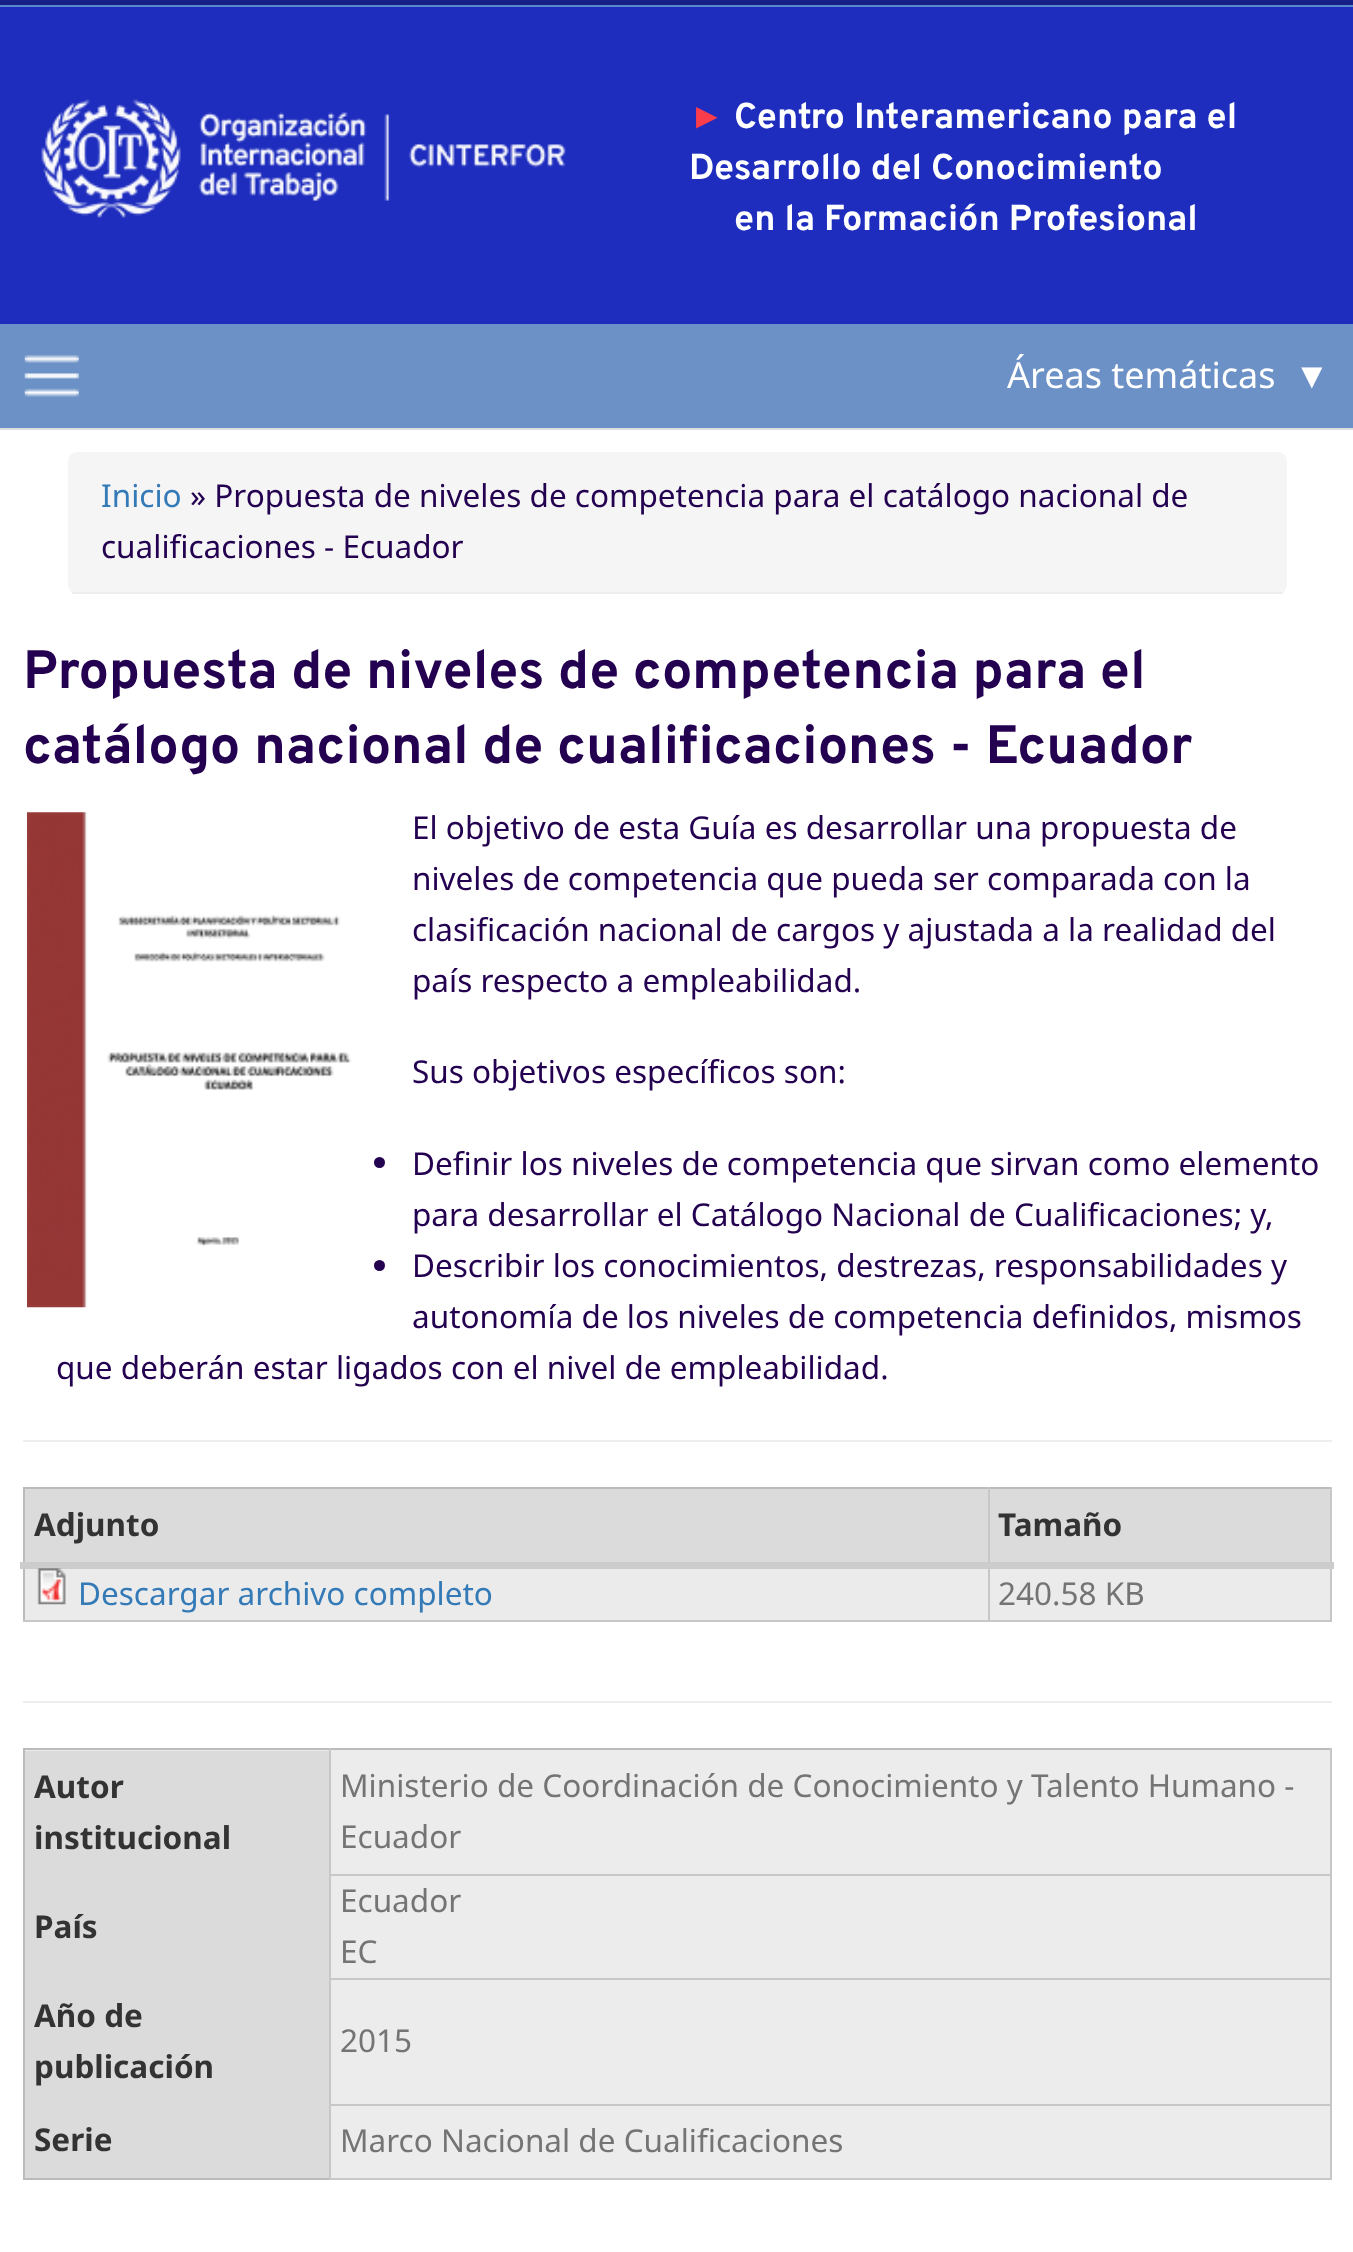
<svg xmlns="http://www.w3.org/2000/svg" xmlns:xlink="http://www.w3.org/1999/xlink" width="1353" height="2252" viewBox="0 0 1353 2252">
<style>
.cls-1{font:bold 36px Liberation Sans;fill:#fa3c4b}
.cls-2{font:bold 36px Overpass;fill:#ffffff}
.cls-3{font:36px Noto Sans;fill:#ffffff}
.cls-4{font:36px Liberation Sans;fill:#ffffff}
.cls-5{font:31.5px Noto Sans;fill:#337ab7}
.cls-6{font:31.5px Noto Sans;fill:#230050}
.cls-7{font:bold 54px Overpass;fill:#230050}
.cls-8{font:bold 31.5px Noto Sans;fill:#333333}
.cls-9{font:31.5px Noto Sans;fill:#747474}
</style>
<rect width="100%" height="100%" fill="#ffffff"/>
<rect fill="#1e2dbe" x="0" y="7" width="1353" height="317"/>
<rect fill="#151f85" x="0" y="0" width="1353" height="5"/>
<rect fill="#5a87cd" x="0" y="5" width="1353" height="2"/>
<image xlink:href="image0.png" x="41" y="99" width="525" height="119"/>
<rect fill="#6c91c6" x="0" y="324" width="1353" height="104"/>
<rect fill="#dedede" x="0" y="428" width="1353" height="2"/>
<image xlink:href="image1.png" x="24" y="355" width="55" height="42"/>
<rect fill="#f5f5f5" x="68" y="452" width="1219" height="142" rx="9"/>
<rect fill="#eeeeee" x="72" y="592" width="1211" height="2"/>
<image xlink:href="image2.png" x="27" y="812" width="325" height="496"/>
<circle fill="#230050" cx="379.5" cy="1162.5" r="5.5"/>
<circle fill="#230050" cx="379.5" cy="1265.5" r="5.5"/>
<rect fill="#eeeeee" x="23" y="1440" width="1309" height="2"/>
<rect fill="#bbbbbb" x="23" y="1487" width="1309" height="2"/>
<rect fill="#bbbbbb" x="23" y="1487" width="2" height="135"/>
<rect fill="#dbdbdb" x="25" y="1489" width="963" height="73"/>
<rect fill="#dbdbdb" x="990" y="1489" width="340" height="73"/>
<rect fill="#c8c7c7" x="1330" y="1487" width="2" height="135"/>
<rect fill="#c8c7c7" x="988" y="1620" width="344" height="2"/>
<rect fill="#c8c7c7" x="988" y="1487" width="2" height="135"/>
<rect fill="#cccccc" x="20" y="1562" width="1314" height="7"/>
<rect fill="#ebebeb" x="25" y="1569" width="963" height="51"/>
<rect fill="#c8c7c7" x="23" y="1620" width="967" height="2"/>
<image xlink:href="image3.png" x="37" y="1568" width="29" height="37"/>
<rect fill="#ebebeb" x="990" y="1569" width="340" height="51"/>
<rect fill="#eeeeee" x="23" y="1701" width="1309" height="2"/>
<rect fill="#ececec" x="25" y="1750" width="1305" height="428"/>
<rect fill="#bbbbbb" x="23" y="1748" width="1309" height="2"/>
<rect fill="#bbbbbb" x="23" y="2178" width="306" height="2"/>
<rect fill="#bbbbbb" x="23" y="1748" width="2" height="432"/>
<rect fill="#dbdbdb" x="25" y="1751" width="304" height="427"/>
<rect fill="#c8c7c7" x="1330" y="1748" width="2" height="432"/>
<rect fill="#c8c7c7" x="329" y="2178" width="1003" height="2"/>
<rect fill="#c8c7c7" x="329" y="2104" width="2" height="76"/>
<rect fill="#c8c7c7" x="329" y="2104" width="1003" height="2"/>
<rect fill="#c8c7c7" x="329" y="1978" width="2" height="128"/>
<rect fill="#c8c7c7" x="329" y="1978" width="1003" height="2"/>
<rect fill="#c8c7c7" x="329" y="1874" width="2" height="106"/>
<rect fill="#c8c7c7" x="329" y="1874" width="1003" height="2"/>
<rect fill="#c8c7c7" x="329" y="1748" width="2" height="129"/>
<text class="cls-1" x="689" y="128">►</text>
<text class="cls-2" x="734" y="128">Centro Interamericano para el</text>
<text class="cls-2" x="689" y="179">Desarrollo del Conocimiento</text>
<text class="cls-2" x="734" y="230">en la Formación Profesional</text>
<text class="cls-3" x="1007" y="388">Áreas temáticas</text>
<text class="cls-4" x="1294" y="388">▼</text>
<text class="cls-5" x="101" y="507">Inicio</text>
<text class="cls-6" x="190" y="507">» Propuesta de niveles de competencia para el catálogo nacional de</text>
<text class="cls-6" x="101" y="558">cualificaciones - Ecuador</text>
<text class="cls-7"><tspan x="23" y="688">Propuesta de niveles de competencia para el</tspan><tspan x="23" y="763">catálogo nacional de cualificaciones - Ecuador</tspan></text>
<text class="cls-6"><tspan x="412" y="839">El objetivo de esta Guía es desarrollar una propuesta de</tspan><tspan x="412" y="890">niveles de competencia que pueda ser comparada con la</tspan><tspan x="412" y="941">clasificación nacional de cargos y ajustada a la realidad del</tspan><tspan x="412" y="992">país respecto a empleabilidad.</tspan></text>
<text class="cls-6" x="412" y="1083">Sus objetivos específicos son:</text>
<text class="cls-6"><tspan x="412" y="1175">Definir los niveles de competencia que sirvan como elemento</tspan><tspan x="412" y="1226">para desarrollar el Catálogo Nacional de Cualificaciones; y,</tspan><tspan x="412" y="1277">Describir los conocimientos, destrezas, responsabilidades y</tspan><tspan x="412" y="1328">autonomía de los niveles de competencia definidos, mismos</tspan></text>
<text class="cls-6" x="56" y="1379">que deberán estar ligados con el nivel de empleabilidad.</text>
<text class="cls-8" x="34" y="1536">Adjunto</text>
<text class="cls-8" x="998" y="1536">Tamaño</text>
<text class="cls-5" x="78" y="1605">Descargar archivo completo</text>
<text class="cls-9" x="998" y="1605">240.58 KB</text>
<text class="cls-8"><tspan x="34" y="1798">Autor</tspan><tspan x="34" y="1849">institucional</tspan></text>
<text class="cls-9"><tspan x="340" y="1797">Ministerio de Coordinación de Conocimiento y Talento Humano -</tspan><tspan x="340" y="1848">Ecuador</tspan></text>
<text class="cls-8" x="34" y="1938">País</text>
<text class="cls-9"><tspan x="340" y="1912">Ecuador</tspan><tspan x="340" y="1963">EC</tspan></text>
<text class="cls-8"><tspan x="34" y="2027">Año de</tspan><tspan x="34" y="2078">publicación</tspan></text>
<text class="cls-9" x="340" y="2052">2015</text>
<text class="cls-8" x="34" y="2151">Serie</text>
<text class="cls-9" x="340" y="2152">Marco Nacional de Cualificaciones</text>
</svg>
